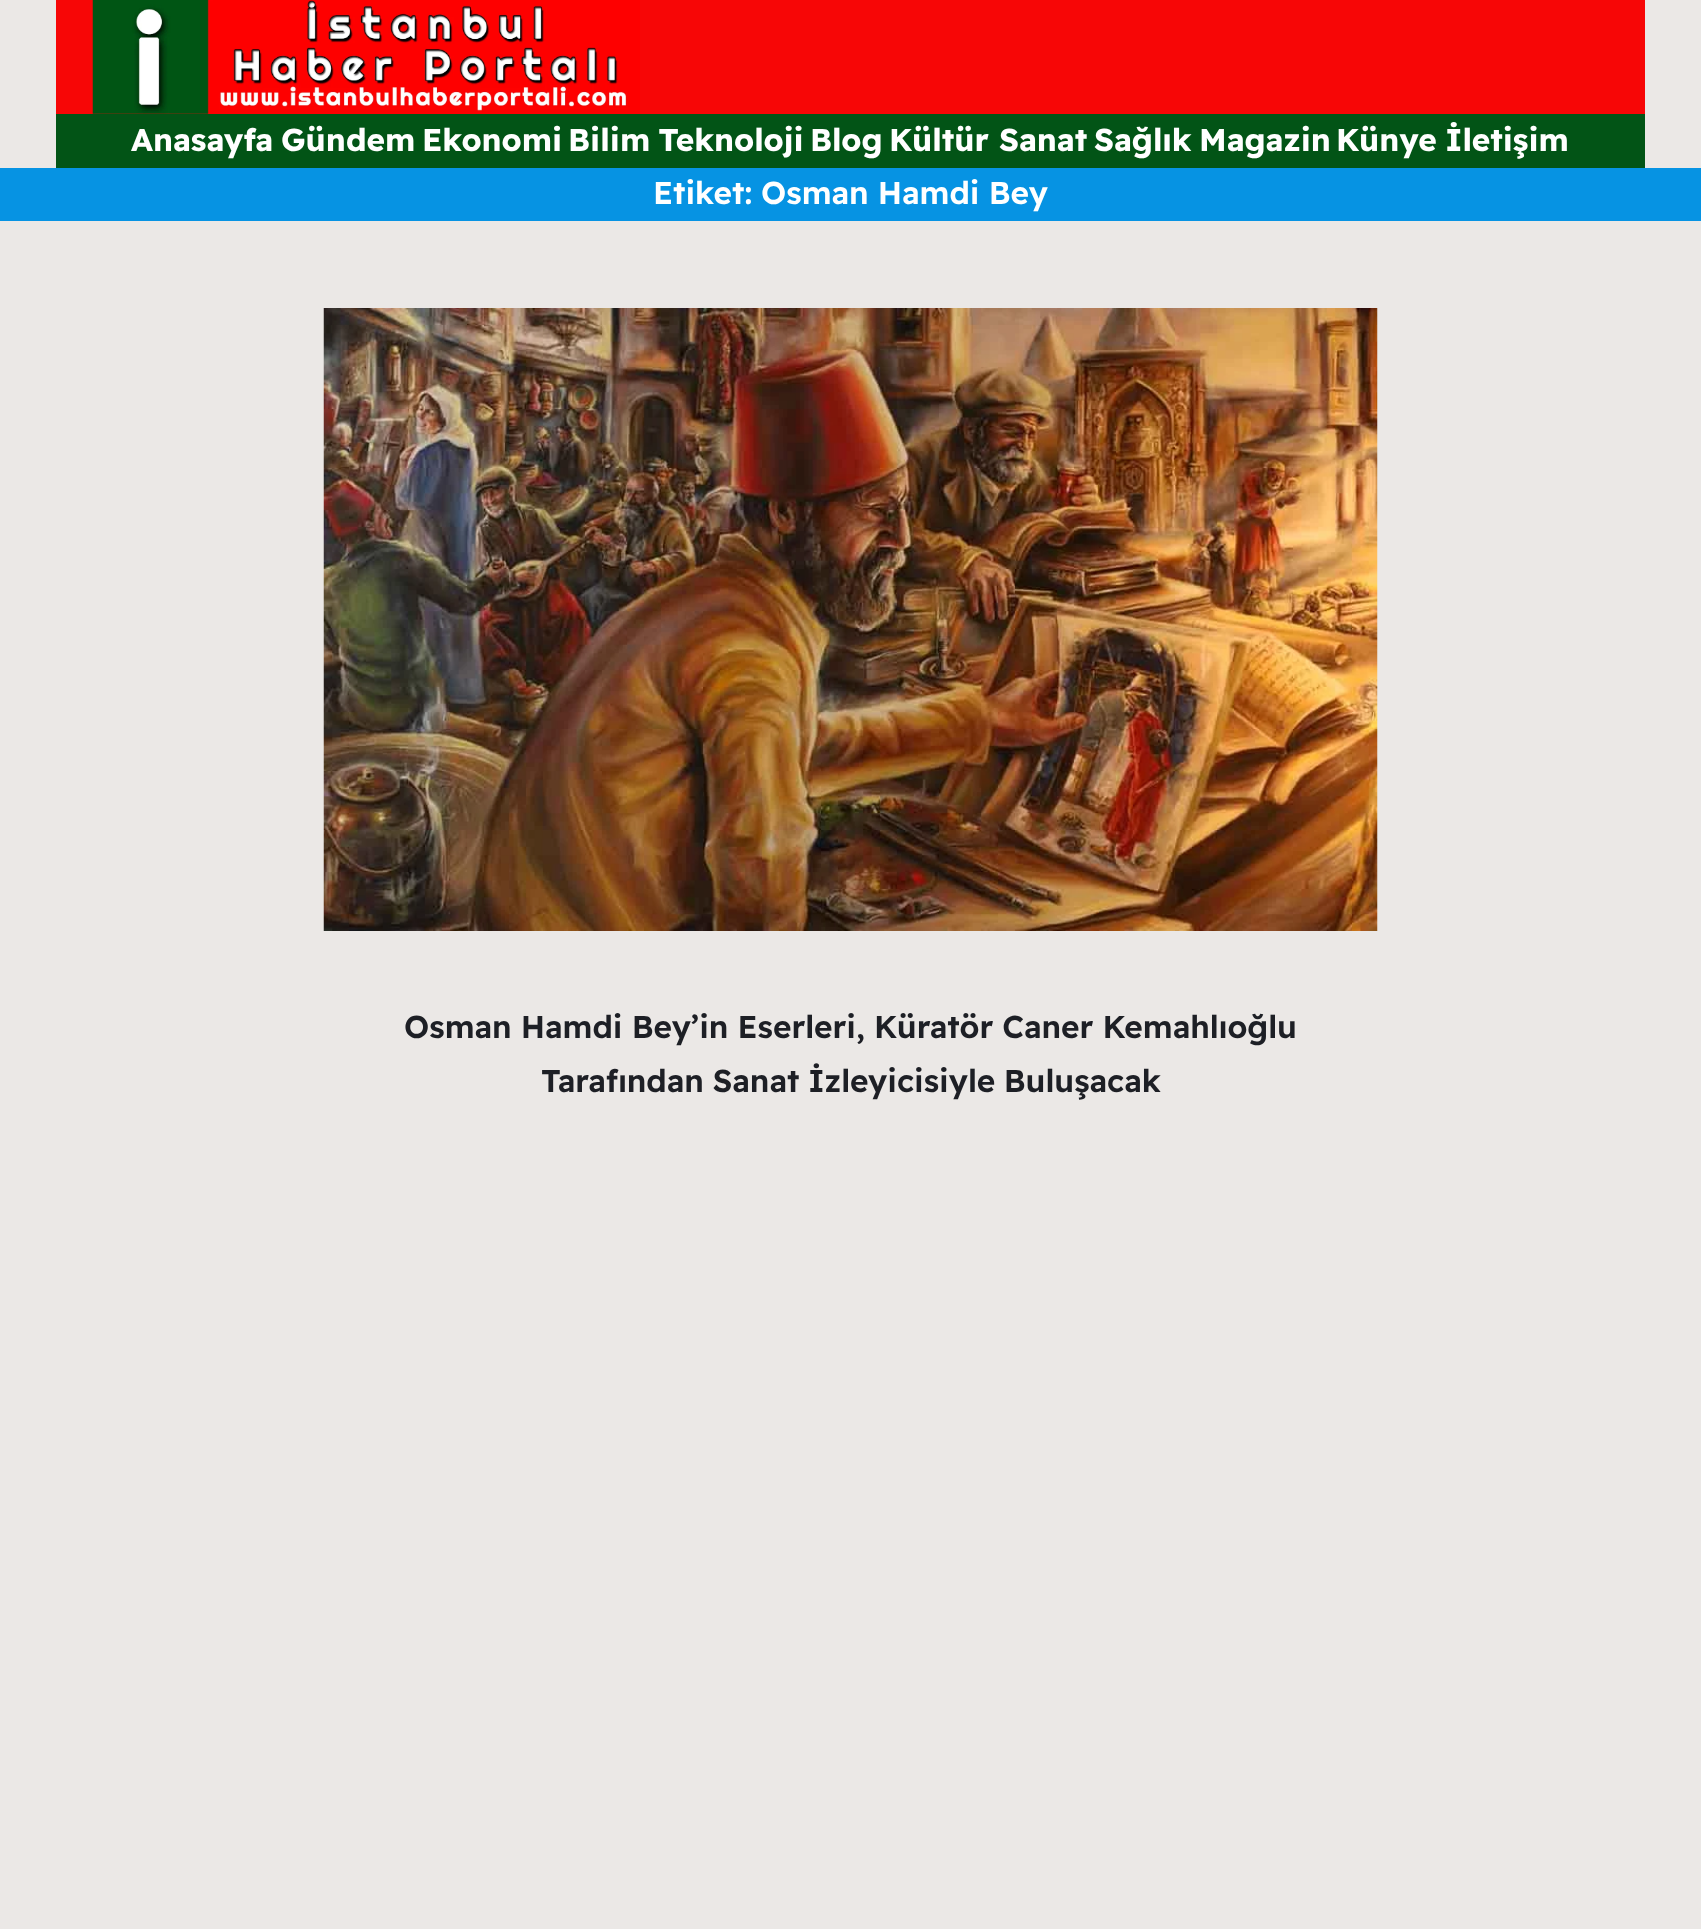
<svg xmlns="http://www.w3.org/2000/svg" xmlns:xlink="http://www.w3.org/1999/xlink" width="1701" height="1929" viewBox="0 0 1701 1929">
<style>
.cls-1{font:bold 31.5px Readex Pro;fill:#ffffff}
.cls-2{font:600 31.5px Readex Pro;fill:#ffffff}
.cls-3{font:600 31.5px Readex Pro;fill:#1d1f25}
</style>
<rect width="100%" height="100%" fill="#ebe8e6"/>
<rect fill="#f70606" x="56" y="0" width="1589" height="114"/>
<image xlink:href="image0.png" x="92" y="0" width="548" height="114"/>
<rect fill="#025416" x="56" y="114" width="1589" height="54"/>
<rect fill="#0693e3" x="0" y="168" width="1701" height="53"/>
<image xlink:href="image1.png" x="323" y="308" width="1055" height="623"/>
<text class="cls-1" x="131" y="151">Anasayfa</text>
<text class="cls-1" x="281" y="151">Gündem</text>
<text class="cls-1" x="422" y="151">Ekonomi</text>
<text class="cls-1" x="568" y="151" word-spacing="-2">Bilim Teknoloji</text>
<text class="cls-1" x="810" y="151">Blog</text>
<text class="cls-1" x="889" y="151">Kültür Sanat</text>
<text class="cls-1" x="1094" y="151">Sağlık</text>
<text class="cls-1" x="1199" y="151">Magazin</text>
<text class="cls-1" x="1336" y="151" word-spacing="-2">Künye İletişim</text>
<text class="cls-2" x="653" y="204">Etiket:</text>
<text class="cls-2" x="761" y="204" word-spacing="-0.5">Osman Hamdi Bey</text>
<text class="cls-3" x="404" y="1038" word-spacing="-0.5">Osman Hamdi Bey’in Eserleri, Küratör Caner Kemahlıoğlu</text>
<text class="cls-3" x="541" y="1092" word-spacing="-1">Tarafından Sanat İzleyicisiyle Buluşacak</text>
</svg>
